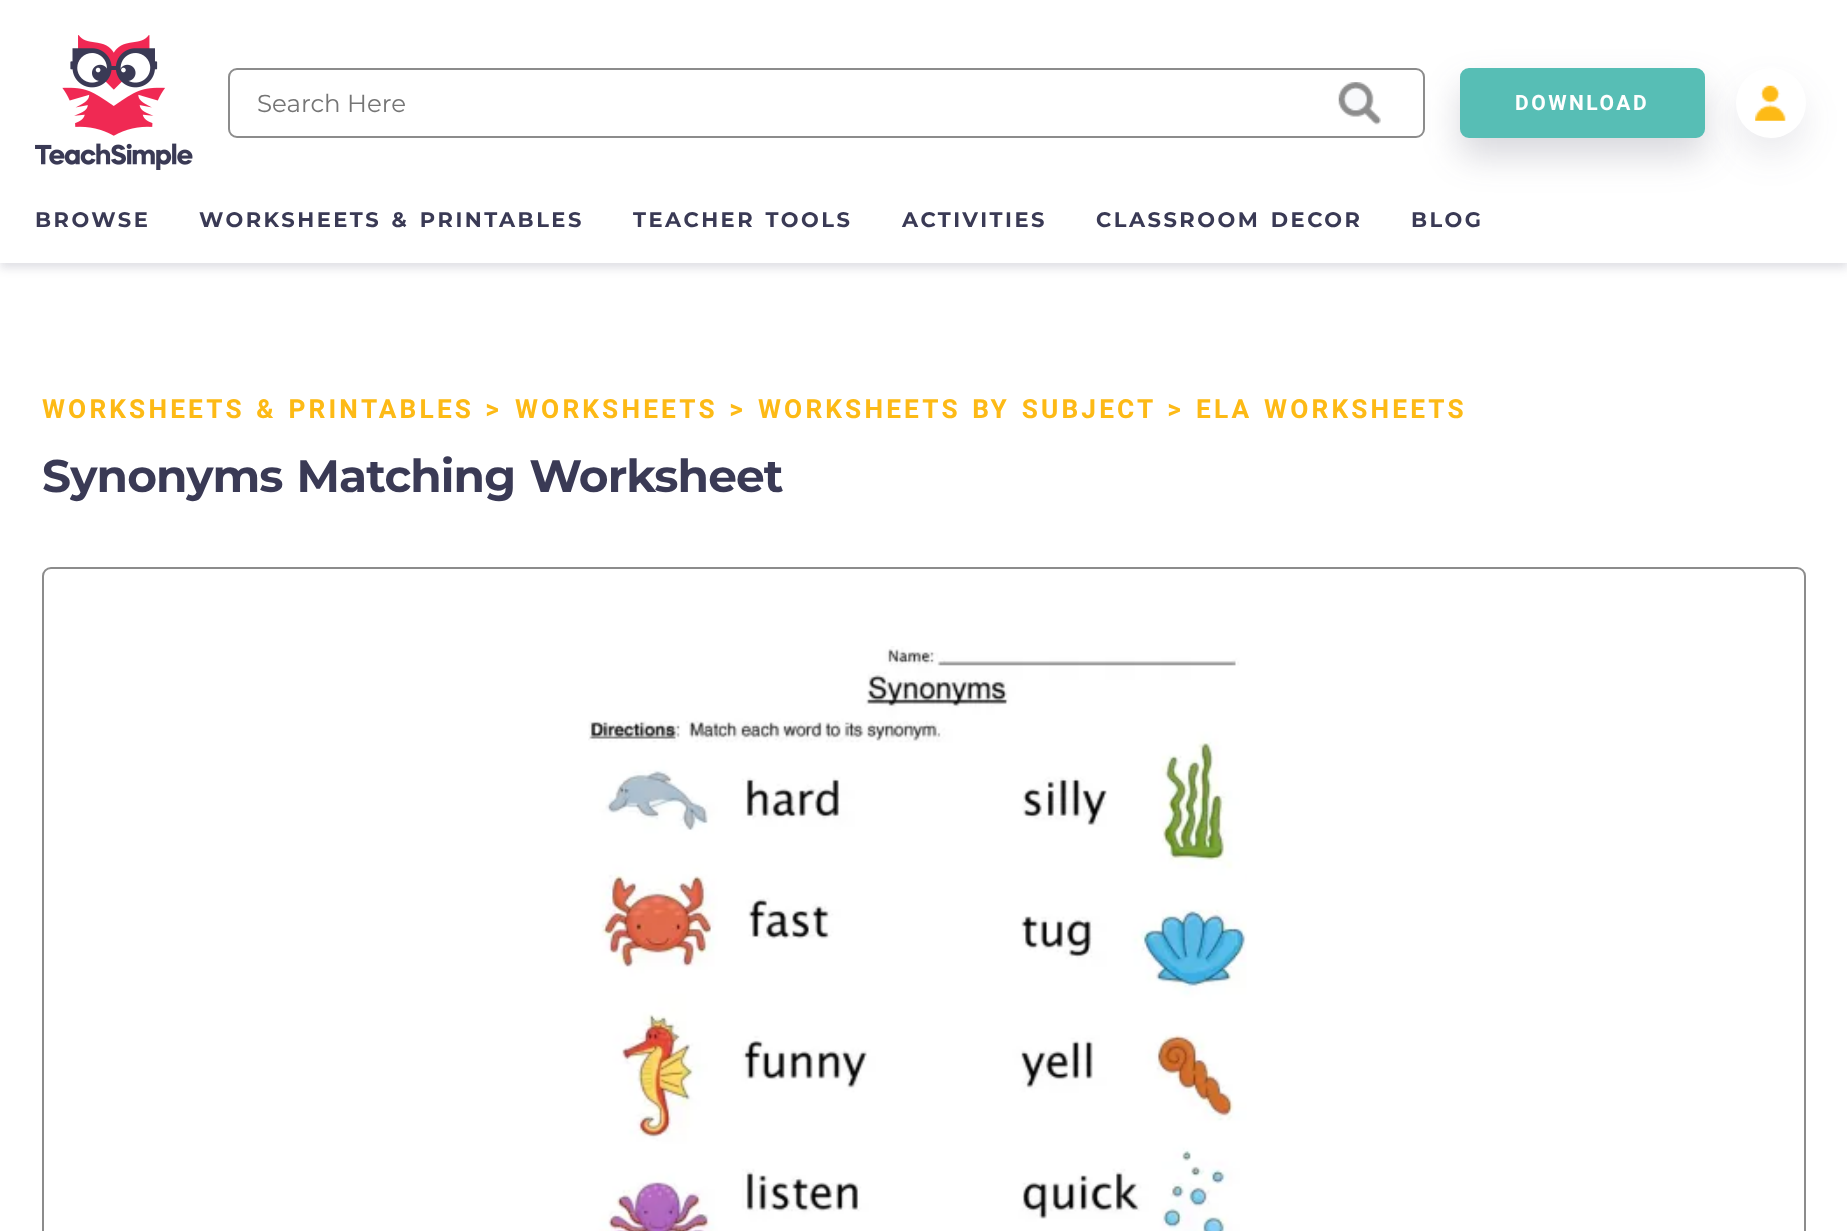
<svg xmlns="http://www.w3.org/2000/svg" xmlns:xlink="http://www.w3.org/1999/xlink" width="1847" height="1231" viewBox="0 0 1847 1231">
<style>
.cls-1{font:24.5px Montserrat;fill:#757575}
.cls-2{font:bold 21px Heebo;letter-spacing:2.5px;fill:#ffffff}
.cls-3{font:bold 21px Montserrat;letter-spacing:2.5px;fill:#3a3a55}
.cls-4{font:bold 26.25px Heebo;letter-spacing:3.15px;fill:#fdba16}
.cls-5{font:bold 45.5px Montserrat;letter-spacing:-0.9px;fill:#3a3a55}
</style>
<defs>
<clipPath id="clip1"><path d="M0 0H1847V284H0ZM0 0H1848V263H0Z" clip-rule="evenodd"/></clipPath>
</defs>
<rect width="100%" height="100%" fill="#ffffff"/>
<g clip-path="url(#clip1)">
<rect fill="#3a3a55" fill-opacity="0.16" filter="blur(5px)" x="0" y="5" width="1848" height="263"/>
</g>
<image xlink:href="image0.png" x="35" y="35" width="158" height="135"/>
<rect fill="#3a3a55" fill-opacity="0.2" filter="blur(17.5px)" x="1460" y="86" width="245" height="70" rx="9"/>
<rect fill="none" stroke="#8c8c8c" stroke-width="2" x="229" y="69" width="1195" height="68" rx="8"/>
<image xlink:href="image1.png" x="1338" y="82" width="43" height="43"/>
<rect fill="#57beb5" stroke="#57beb5" stroke-width="2" x="1461" y="69" width="243" height="68" rx="8"/>
<rect fill="#3a3a55" fill-opacity="0.1" filter="blur(17.5px)" x="1736" y="86" width="70" height="70" rx="35"/>
<circle fill="#ffffff" cx="1771" cy="103" r="35"/>
<image xlink:href="image2.png" x="1755" y="85" width="31" height="36"/>
<rect fill="none" stroke="#8c8c8c" stroke-width="2" x="43" y="568" width="1762" height="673" rx="8"/>
<image xlink:href="image3.png" x="588" y="646" width="659" height="585"/>
<text class="cls-1" x="257" y="112">Search Here</text>
<text class="cls-2" x="1515" y="110">DOWNLOAD</text>
<text class="cls-3" x="35" y="227">BROWSE</text>
<text class="cls-3" x="199" y="227" word-spacing="2">WORKSHEETS &amp; PRINTABLES</text>
<text class="cls-3" x="633" y="227" word-spacing="2">TEACHER TOOLS</text>
<text class="cls-3" x="902" y="227">ACTIVITIES</text>
<text class="cls-3" x="1096" y="227" word-spacing="2">CLASSROOM DECOR</text>
<text class="cls-3" x="1411" y="227">BLOG</text>
<text class="cls-4" x="42" y="418" word-spacing="2">WORKSHEETS &amp; PRINTABLES</text>
<text class="cls-4" x="485" y="418">&gt;</text>
<text class="cls-4" x="515" y="418">WORKSHEETS</text>
<text class="cls-4" x="729" y="418">&gt;</text>
<text class="cls-4" x="758" y="418" word-spacing="2">WORKSHEETS BY SUBJECT</text>
<text class="cls-4" x="1167" y="418">&gt;</text>
<text class="cls-4" x="1196" y="418" word-spacing="2">ELA WORKSHEETS</text>
<text class="cls-5" x="42" y="492" word-spacing="2">Synonyms Matching Worksheet</text>
</svg>
